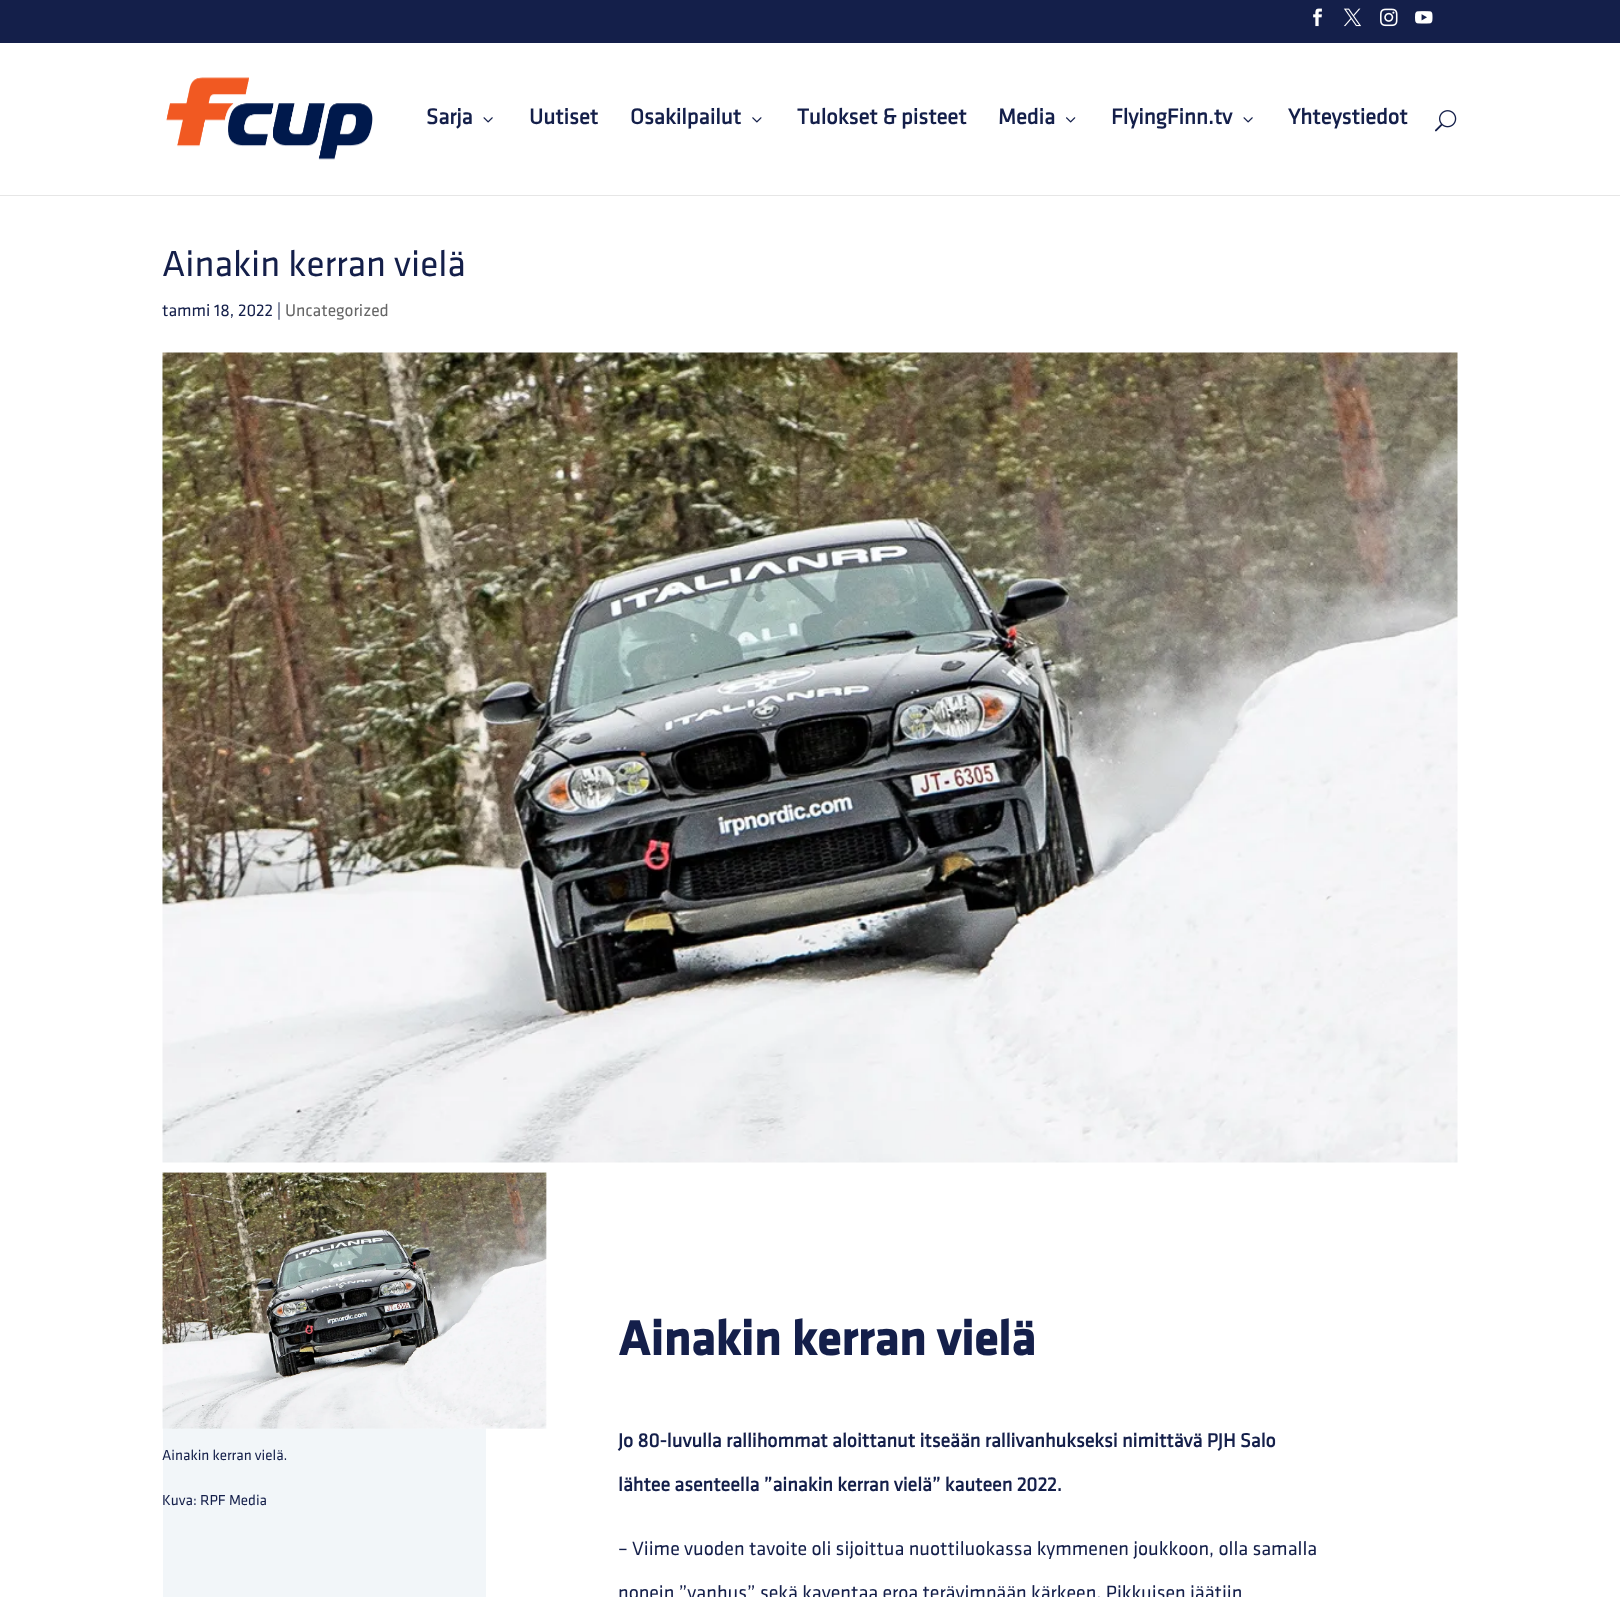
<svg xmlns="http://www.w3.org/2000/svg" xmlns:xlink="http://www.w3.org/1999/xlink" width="1620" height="1597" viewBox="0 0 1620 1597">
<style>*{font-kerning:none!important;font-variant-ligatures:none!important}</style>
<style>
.cls-1{font:bold 22.5px 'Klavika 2';fill:#141f4a}
.cls-2{font:37.5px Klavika;fill:#141f4a}
.cls-3{font:17.5px Klavika;fill:#141f4a}
.cls-4{font:17.5px Klavika;fill:#666666}
.cls-5{font:15px Klavika;fill:#141f4a}
.cls-6{font:bold 50px Klavika;fill:#141f4a}
.cls-7{font:bold 20px 'Klavika 2';fill:#141f4a}
.cls-8{font:20px Klavika;fill:#141f4a}
</style>
<rect width="100%" height="100%" fill="#ffffff"/>
<rect fill="#141f4a" x="0" y="0" width="1620" height="43"/>
<image xlink:href="image0.png" x="1313" y="8" width="9" height="19"/>
<image xlink:href="image1.png" x="1343" y="8" width="18" height="19"/>
<image xlink:href="image2.png" x="1380" y="8" width="18" height="19"/>
<image xlink:href="image3.png" x="1415" y="11" width="18" height="13"/>
<rect fill="#e6e6e6" x="0" y="195" width="1620" height="1"/>
<image xlink:href="image4.png" x="166" y="77" width="207" height="83"/>
<image xlink:href="image5.png" x="483" y="117" width="10" height="6"/>
<image xlink:href="image6.png" x="752" y="117" width="10" height="6"/>
<image xlink:href="image7.png" x="1066" y="117" width="10" height="6"/>
<image xlink:href="image5.png" x="1243" y="117" width="10" height="6"/>
<image xlink:href="image8.png" x="1435" y="110" width="22" height="22"/>
<image xlink:href="image9.png" x="162" y="352" width="1296" height="811"/>
<rect fill="#f2f6f9" x="163" y="1428" width="323" height="169"/>
<image xlink:href="image10.png" x="162" y="1172" width="385" height="257"/>
<text class="cls-1" x="426" y="124">Sarja</text>
<text class="cls-1" x="529" y="124">Uutiset</text>
<text class="cls-1" x="630" y="124">Osakilpailut</text>
<text class="cls-1" x="797" y="124">Tulokset &amp; pisteet</text>
<text class="cls-1" x="998" y="124">Media</text>
<text class="cls-1" x="1111" y="124">FlyingFinn.tv</text>
<text class="cls-1" x="1288" y="124">Yhteystiedot</text>
<text class="cls-2" x="162" y="276">Ainakin kerran vielä</text>
<text class="cls-3" x="162" y="316">tammi 18, 2022 |</text>
<text class="cls-4" x="285" y="316">Uncategorized</text>
<text class="cls-5" x="162" y="1460">Ainakin kerran vielä.</text>
<text class="cls-5" x="162" y="1505">Kuva: RPF Media</text>
<text class="cls-6" x="618" y="1355">Ainakin kerran vielä</text>
<text class="cls-7" x="618" y="1447">Jo 80-luvulla rallihommat aloittanut itseään rallivanhukseksi nimittävä PJH Salo</text>
<text class="cls-7" x="618" y="1491">lähtee asenteella ”ainakin kerran vielä” kauteen 2022.</text>
<text class="cls-8" x="618" y="1555">– Viime vuoden tavoite oli sijoittua nuottiluokassa kymmenen joukkoon, olla samalla</text>
<text class="cls-8" x="618" y="1599">nopein ”vanhus” sekä kaventaa eroa terävimpään kärkeen. Pikkuisen jäätiin</text>
</svg>
